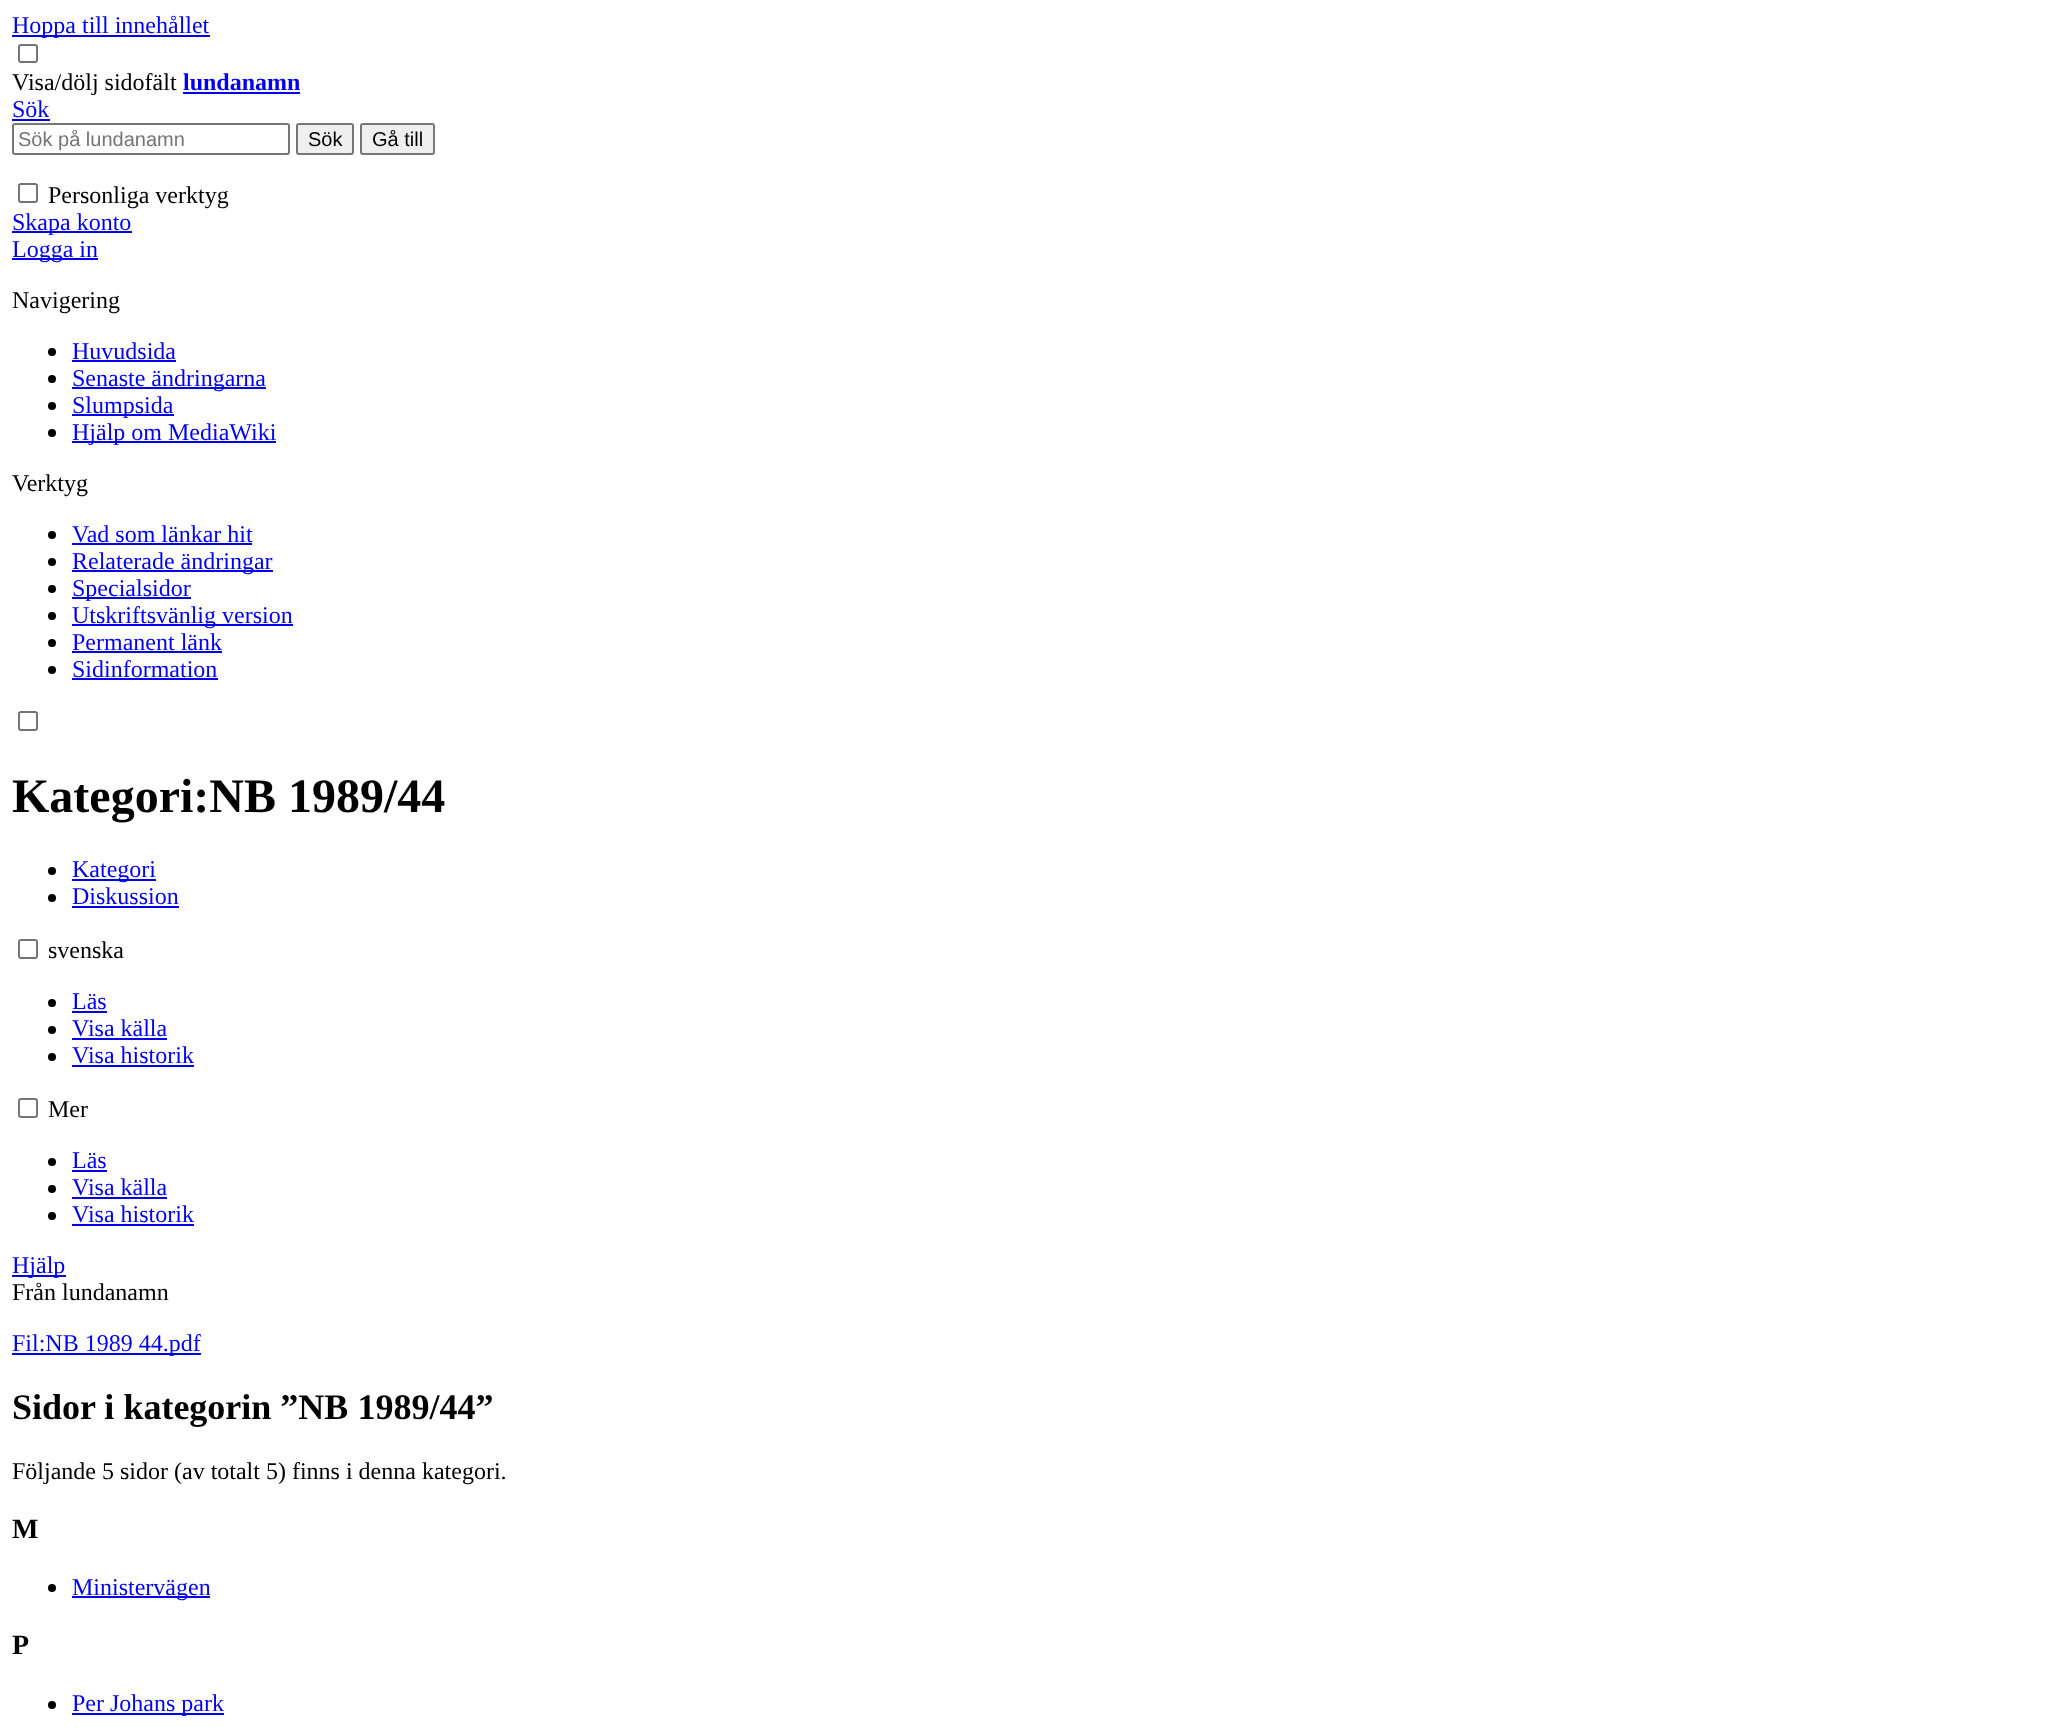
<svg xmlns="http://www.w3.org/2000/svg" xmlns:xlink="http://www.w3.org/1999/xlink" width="2067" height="1730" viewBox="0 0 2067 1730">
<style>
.cls-1{font:24px Liberation Serif;fill:#0000ee}
.cls-2{font:24px Liberation Serif;fill:#000000}
.cls-3{font:bold 24px Liberation Serif;fill:#0000ee}
.cls-4{font:20px Liberation Sans;fill:#757575}
.cls-5{font:20px Liberation Sans;fill:#000000}
.cls-6{font:bold 48px Liberation Serif;fill:#000000}
.cls-7{font:bold 36px Liberation Serif;fill:#000000}
.cls-8{font:bold 28px Liberation Serif;fill:#000000}
</style>
<rect width="100%" height="100%" fill="#ffffff"/>
<rect fill="#0000ee" x="12" y="35" width="198" height="2"/>
<rect fill="none" stroke="#767676" stroke-width="2" x="19" y="45" width="18" height="17" rx="2"/>
<rect fill="#0000ee" x="183" y="92" width="117" height="2"/>
<rect fill="#0000ee" x="12" y="119" width="38" height="2"/>
<rect fill="none" stroke="#767676" stroke-width="2" x="13" y="124" width="276" height="30" rx="2"/>
<rect fill="#efefef" stroke="#767676" stroke-width="2" x="297" y="124" width="56" height="30" rx="2"/>
<rect fill="#efefef" stroke="#767676" stroke-width="2" x="361" y="124" width="73" height="30" rx="2"/>
<rect fill="none" stroke="#767676" stroke-width="2" x="19" y="184" width="18" height="18" rx="2"/>
<rect fill="#0000ee" x="12" y="231" width="120" height="2"/>
<rect fill="#0000ee" x="12" y="258" width="86" height="2"/>
<circle fill="#000000" cx="52" cy="352" r="4"/>
<rect fill="#0000ee" x="72" y="360" width="104" height="2"/>
<circle fill="#000000" cx="52" cy="379" r="4"/>
<rect fill="#0000ee" x="72" y="387" width="194" height="2"/>
<circle fill="#000000" cx="52" cy="406" r="4"/>
<rect fill="#0000ee" x="72" y="414" width="102" height="2"/>
<circle fill="#000000" cx="52" cy="433" r="4"/>
<rect fill="#0000ee" x="72" y="441" width="204" height="2"/>
<circle fill="#000000" cx="52" cy="535" r="4"/>
<rect fill="#0000ee" x="72" y="543" width="180" height="2"/>
<circle fill="#000000" cx="52" cy="562" r="4"/>
<rect fill="#0000ee" x="72" y="570" width="201" height="2"/>
<circle fill="#000000" cx="52" cy="589" r="4"/>
<rect fill="#0000ee" x="72" y="597" width="119" height="2"/>
<circle fill="#000000" cx="52" cy="616" r="4"/>
<rect fill="#0000ee" x="72" y="624" width="221" height="2"/>
<circle fill="#000000" cx="52" cy="643" r="4"/>
<rect fill="#0000ee" x="72" y="651" width="150" height="2"/>
<circle fill="#000000" cx="52" cy="670" r="4"/>
<rect fill="#0000ee" x="72" y="678" width="146" height="2"/>
<rect fill="none" stroke="#767676" stroke-width="2" x="19" y="712" width="18" height="18" rx="2"/>
<circle fill="#000000" cx="52" cy="871" r="4"/>
<rect fill="#0000ee" x="72" y="879" width="84" height="2"/>
<circle fill="#000000" cx="52" cy="898" r="4"/>
<rect fill="#0000ee" x="72" y="906" width="107" height="2"/>
<rect fill="none" stroke="#767676" stroke-width="2" x="19" y="940" width="18" height="18" rx="2"/>
<circle fill="#000000" cx="52" cy="1003" r="4"/>
<rect fill="#0000ee" x="72" y="1011" width="35" height="2"/>
<circle fill="#000000" cx="52" cy="1030" r="4"/>
<rect fill="#0000ee" x="72" y="1038" width="95" height="2"/>
<circle fill="#000000" cx="52" cy="1057" r="4"/>
<rect fill="#0000ee" x="72" y="1065" width="122" height="2"/>
<rect fill="none" stroke="#767676" stroke-width="2" x="19" y="1099" width="18" height="18" rx="2"/>
<circle fill="#000000" cx="52" cy="1162" r="4"/>
<rect fill="#0000ee" x="72" y="1170" width="35" height="2"/>
<circle fill="#000000" cx="52" cy="1189" r="4"/>
<rect fill="#0000ee" x="72" y="1197" width="95" height="2"/>
<circle fill="#000000" cx="52" cy="1216" r="4"/>
<rect fill="#0000ee" x="72" y="1224" width="122" height="2"/>
<rect fill="#0000ee" x="12" y="1275" width="54" height="2"/>
<rect fill="#0000ee" x="12" y="1353" width="189" height="2"/>
<circle fill="#000000" cx="52" cy="1588" r="4"/>
<rect fill="#0000ee" x="72" y="1596" width="138" height="2"/>
<circle fill="#000000" cx="52" cy="1705" r="4"/>
<rect fill="#0000ee" x="72" y="1713" width="152" height="2"/>
<text class="cls-1" x="12" y="33">Hoppa till innehållet</text>
<text class="cls-2" x="12" y="90">Visa/dölj sidofält</text>
<text class="cls-3" x="183" y="90">lundanamn</text>
<text class="cls-1" x="12" y="117">Sök</text>
<text class="cls-4" x="18" y="146">Sök på lundanamn</text>
<text class="cls-5" x="308" y="146">Sök</text>
<text class="cls-5" x="372" y="146">Gå till</text>
<text class="cls-2" x="48" y="203">Personliga verktyg</text>
<text class="cls-1"><tspan x="12" y="230">Skapa konto</tspan><tspan x="12" y="257">Logga in</tspan></text>
<text class="cls-2" x="12" y="308">Navigering</text>
<text class="cls-1"><tspan x="72" y="359">Huvudsida</tspan><tspan x="72" y="386">Senaste ändringarna</tspan><tspan x="72" y="413">Slumpsida</tspan><tspan x="72" y="440">Hjälp om MediaWiki</tspan></text>
<text class="cls-2" x="12" y="491">Verktyg</text>
<text class="cls-1"><tspan x="72" y="542">Vad som länkar hit</tspan><tspan x="72" y="569">Relaterade ändringar</tspan><tspan x="72" y="596">Specialsidor</tspan><tspan x="72" y="623">Utskriftsvänlig version</tspan><tspan x="72" y="650">Permanent länk</tspan><tspan x="72" y="677">Sidinformation</tspan></text>
<text class="cls-6" x="12" y="812">Kategori:NB 1989/44</text>
<text class="cls-1"><tspan x="72" y="877">Kategori</tspan><tspan x="72" y="904">Diskussion</tspan></text>
<text class="cls-2" x="48" y="958">svenska</text>
<text class="cls-1"><tspan x="72" y="1009">Läs</tspan><tspan x="72" y="1036">Visa källa</tspan><tspan x="72" y="1063">Visa historik</tspan></text>
<text class="cls-2" x="48" y="1117">Mer</text>
<text class="cls-1"><tspan x="72" y="1168">Läs</tspan><tspan x="72" y="1195">Visa källa</tspan><tspan x="72" y="1222">Visa historik</tspan></text>
<text class="cls-1" x="12" y="1273">Hjälp</text>
<text class="cls-2" x="12" y="1300">Från lundanamn</text>
<text class="cls-1" x="12" y="1351">Fil:NB 1989 44.pdf</text>
<text class="cls-7" x="12" y="1419">Sidor i kategorin ”NB 1989/44”</text>
<text class="cls-2" x="12" y="1479">Följande 5 sidor (av totalt 5) finns i denna kategori.</text>
<text class="cls-8" x="12" y="1538">M</text>
<text class="cls-1" x="72" y="1595">Ministervägen</text>
<text class="cls-8" x="12" y="1654">P</text>
<text class="cls-1" x="72" y="1711">Per Johans park</text>
</svg>
